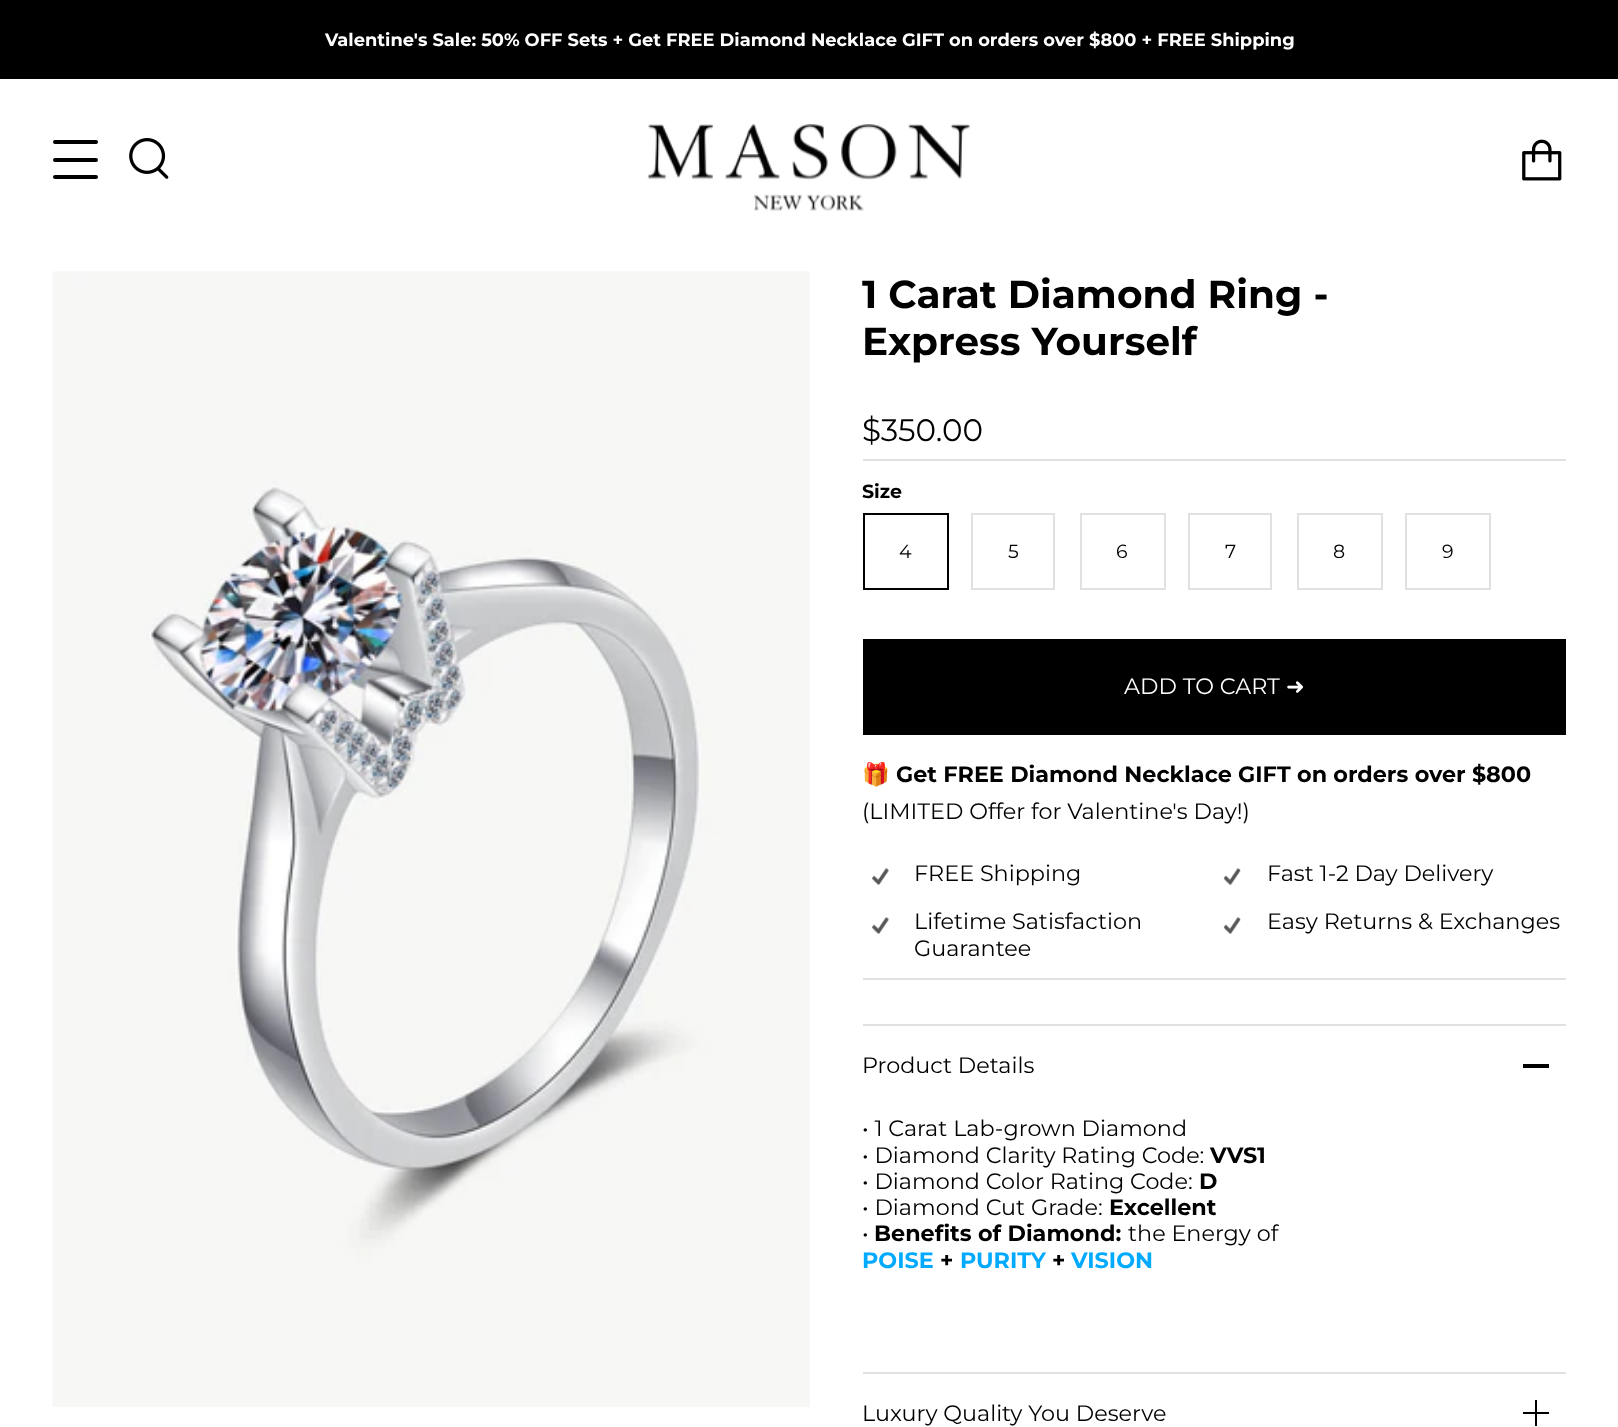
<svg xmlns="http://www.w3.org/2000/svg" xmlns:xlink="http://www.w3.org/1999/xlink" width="1618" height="1427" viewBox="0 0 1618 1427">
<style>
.cls-1{font:bold 17.85px Montserrat;fill:#ffffff}
.cls-2{font:bold 39px Montserrat;fill:#000000}
.cls-3{font:31px Montserrat;fill:#000000}
.cls-4{font:bold 19px Montserrat;fill:#000000}
.cls-5{font:19px Montserrat;fill:#000000}
.cls-6{font:22.3px Montserrat;fill:#ffffff}
.cls-7{font:22.3px DejaVu Sans;fill:#ffffff}
.cls-8{font:22.3px Noto Color Emoji;fill:#000000}
.cls-9{font:bold 22.3px Montserrat;fill:#000000}
.cls-10{font:22.3px Montserrat;fill:#000000}
.cls-11{font:bold 22.3px Montserrat;fill:#00aaff}
</style>
<rect width="100%" height="100%" fill="#ffffff"/>
<rect fill="#000000" x="0" y="0" width="1618" height="79"/>
<rect fill="#000000" x="53" y="140" width="45" height="4" rx="2"/>
<rect fill="#000000" x="53" y="158" width="45" height="4" rx="2"/>
<rect fill="#000000" x="53" y="175" width="45" height="4" rx="2"/>
<image xlink:href="image0.png" x="129" y="138" width="40" height="41"/>
<image xlink:href="image1.png" x="647" y="124" width="324" height="87"/>
<image xlink:href="image2.png" x="1522" y="139" width="40" height="42"/>
<image xlink:href="image3.png" x="52" y="271" width="758" height="1136"/>
<rect fill="#e1e1e1" x="863" y="459" width="703" height="2"/>
<rect fill="none" stroke="#000000" stroke-width="2" x="864" y="514" width="84" height="75"/>
<rect fill="none" stroke="#e1e1e1" stroke-width="2" x="972" y="514" width="82" height="75"/>
<rect fill="none" stroke="#e1e1e1" stroke-width="2" x="1081" y="514" width="84" height="75"/>
<rect fill="none" stroke="#e1e1e1" stroke-width="2" x="1189" y="514" width="82" height="75"/>
<rect fill="none" stroke="#e1e1e1" stroke-width="2" x="1298" y="514" width="84" height="75"/>
<rect fill="none" stroke="#e1e1e1" stroke-width="2" x="1406" y="514" width="84" height="75"/>
<rect fill="#000000" x="863" y="639" width="703" height="96"/>
<image xlink:href="image4.png" x="872" y="868" width="17" height="18"/>
<image xlink:href="image5.png" x="1223" y="868" width="18" height="18"/>
<image xlink:href="image4.png" x="872" y="917" width="17" height="18"/>
<image xlink:href="image5.png" x="1223" y="917" width="18" height="18"/>
<rect fill="#e1e1e1" x="863" y="978" width="703" height="2"/>
<rect fill="#e1e1e1" x="863" y="1024" width="703" height="2"/>
<rect fill="#000000" x="1523" y="1064" width="26" height="4"/>
<rect fill="#e1e1e1" x="863" y="1372" width="703" height="2"/>
<rect fill="#000000" x="1523" y="1412" width="26" height="2"/>
<rect fill="#000000" x="1535" y="1400" width="2" height="26"/>
<text class="cls-1" x="325" y="46">Valentine's Sale: 50% OFF Sets + Get FREE Diamond Necklace GIFT on orders over $800 + FREE Shipping</text>
<text class="cls-2"><tspan x="862" y="308">1 Carat Diamond Ring -</tspan><tspan x="862" y="355">Express Yourself</tspan></text>
<text class="cls-3" x="862" y="441">$350.00</text>
<text class="cls-4" x="862" y="498">Size</text>
<text class="cls-5" x="899" y="558">4</text>
<text class="cls-5" x="1008" y="558">5</text>
<text class="cls-5" x="1116" y="558">6</text>
<text class="cls-5" x="1225" y="558">7</text>
<text class="cls-5" x="1333" y="558">8</text>
<text class="cls-5" x="1442" y="558">9</text>
<text class="cls-6" x="1124" y="694">ADD TO CART</text>
<text class="cls-7" x="1286" y="694">➜</text>
<text class="cls-8" x="862" y="782">🎁</text>
<text class="cls-9" x="896" y="782">Get FREE Diamond Necklace GIFT on orders over $800</text>
<text class="cls-10" x="862" y="819">(LIMITED Offer for Valentine's Day!)</text>
<text class="cls-10" x="914" y="881">FREE Shipping</text>
<text class="cls-10" x="1267" y="881">Fast 1-2 Day Delivery</text>
<text class="cls-10"><tspan x="914" y="929">Lifetime Satisfaction</tspan><tspan x="914" y="956">Guarantee</tspan></text>
<text class="cls-10" x="1267" y="929">Easy Returns &amp; Exchanges</text>
<text class="cls-10" x="862" y="1073">Product Details</text>
<text class="cls-10"><tspan x="862" y="1136">• 1 Carat Lab-grown Diamond</tspan><tspan x="862" y="1163">• Diamond Clarity Rating Code:</tspan></text>
<text class="cls-9" x="1210" y="1163">VVS1</text>
<text class="cls-10" x="862" y="1189">• Diamond Color Rating Code:</text>
<text class="cls-9" x="1199" y="1189">D</text>
<text class="cls-10" x="862" y="1215">• Diamond Cut Grade:</text>
<text class="cls-9" x="1109" y="1215">Excellent</text>
<text class="cls-10" x="862" y="1241">•</text>
<text class="cls-9" x="874" y="1241">Benefits of Diamond:</text>
<text class="cls-10" x="1128" y="1241">the Energy of</text>
<text class="cls-11" x="862" y="1268">POISE</text>
<text class="cls-9" x="940" y="1268">+</text>
<text class="cls-11" x="960" y="1268">PURITY</text>
<text class="cls-9" x="1052" y="1268">+</text>
<text class="cls-11" x="1071" y="1268">VISION</text>
<text class="cls-10" x="862" y="1421">Luxury Quality You Deserve</text>
</svg>
